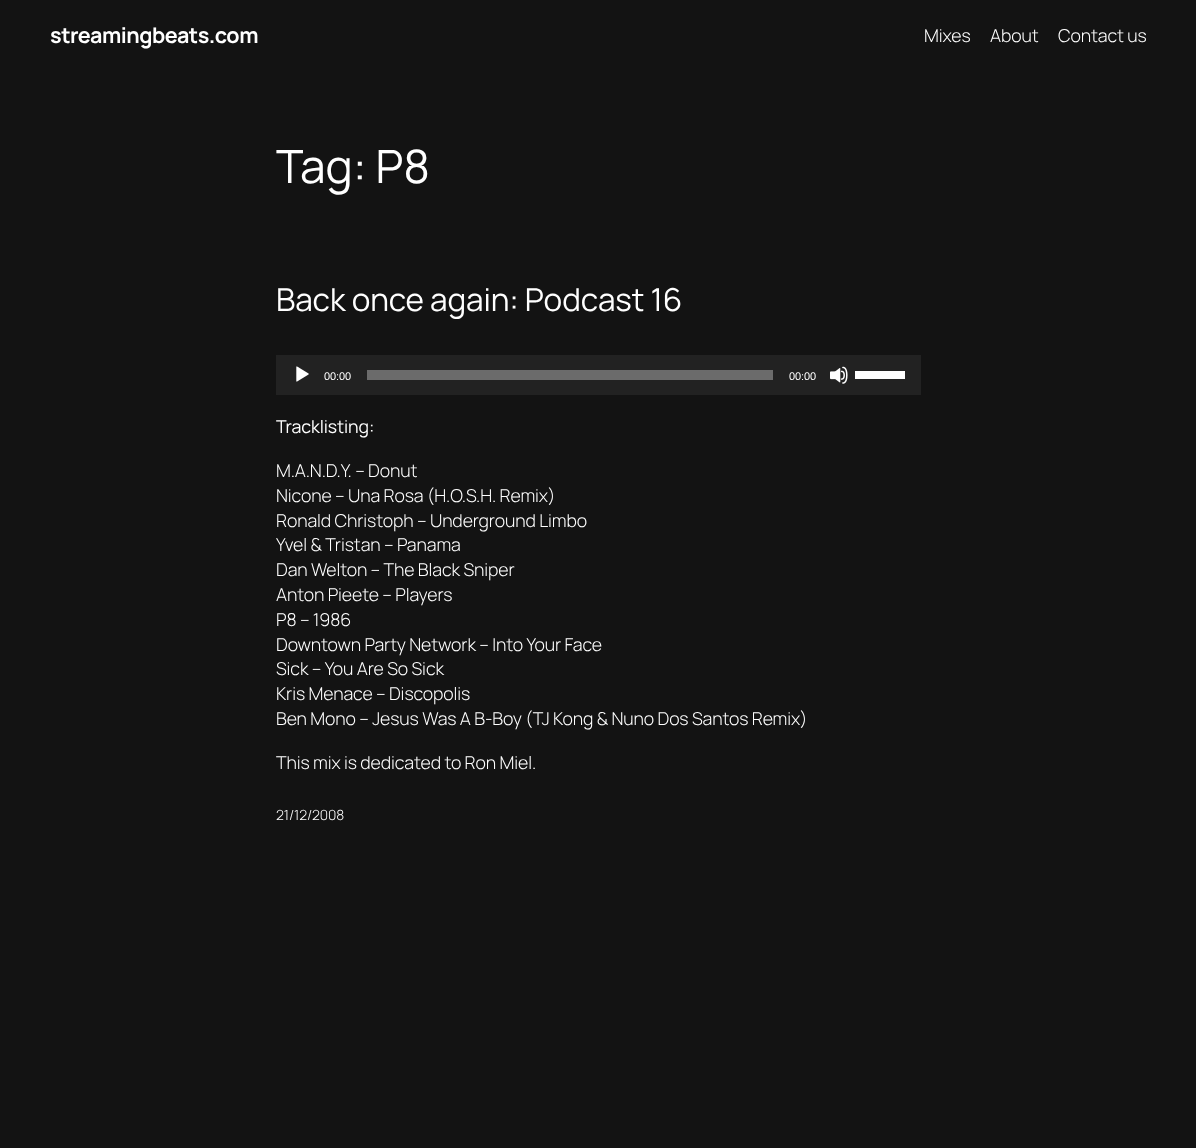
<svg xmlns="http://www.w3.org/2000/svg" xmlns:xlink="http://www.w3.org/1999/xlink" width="1196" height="1148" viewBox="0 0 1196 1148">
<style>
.cls-1{font:bold 21.5px Manrope;letter-spacing:-0.5px;fill:#ffffff}
.cls-2{font:300 17.75px Manrope;letter-spacing:-0.1px;fill:#ffffff}
.cls-3{font:46px Manrope;letter-spacing:-0.1px;fill:#ffffff}
.cls-4{font:31.5px Manrope;letter-spacing:-0.1px;fill:#ffffff}
.cls-5{font:11px Liberation Sans;letter-spacing:-0.1px;fill:#ffffff}
.cls-6{font:17.75px Manrope;letter-spacing:-0.1px;fill:#ffffff}
.cls-7{font:300 14px Manrope;letter-spacing:-0.1px;fill:#ffffff}
</style>
<rect width="100%" height="100%" fill="#131313"/>
<rect fill="#222222" x="276" y="355" width="645" height="40"/>
<image xlink:href="image0.png" x="296" y="366" width="13" height="16"/>
<rect fill="#6b6b6b" x="367" y="370" width="406" height="10"/>
<image xlink:href="image1.png" x="830" y="366" width="18" height="18"/>
<rect fill="#ffffff" x="855" y="371" width="50" height="8"/>
<text class="cls-1" x="50" y="43">streamingbeats.com</text>
<text class="cls-2" x="924" y="42">Mixes</text>
<text class="cls-2" x="990" y="42">About</text>
<text class="cls-2" x="1058" y="42">Contact us</text>
<text class="cls-3" x="276" y="183">Tag: P8</text>
<text class="cls-4" x="276" y="311">Back once again: Podcast 16</text>
<text class="cls-5" x="324" y="380">00:00</text>
<text class="cls-5" x="789" y="380">00:00</text>
<text class="cls-6" x="276" y="433">Tracklisting:</text>
<text class="cls-2"><tspan x="276" y="477">M.A.N.D.Y. – Donut</tspan><tspan x="276" y="502">Nicone – Una Rosa (H.O.S.H. Remix)</tspan><tspan x="276" y="527">Ronald Christoph – Underground Limbo</tspan><tspan x="276" y="551">Yvel &amp; Tristan – Panama</tspan><tspan x="276" y="576">Dan Welton – The Black Sniper</tspan><tspan x="276" y="601">Anton Pieete – Players</tspan><tspan x="276" y="626">P8 – 1986</tspan><tspan x="276" y="651">Downtown Party Network – Into Your Face</tspan><tspan x="276" y="675">Sick – You Are So Sick</tspan><tspan x="276" y="700">Kris Menace – Discopolis</tspan><tspan x="276" y="725">Ben Mono – Jesus Was A B-Boy (TJ Kong &amp; Nuno Dos Santos Remix)</tspan></text>
<text class="cls-2" x="276" y="769">This mix is dedicated to Ron Miel.</text>
<text class="cls-7" x="276" y="820">21/12/2008</text>
</svg>
